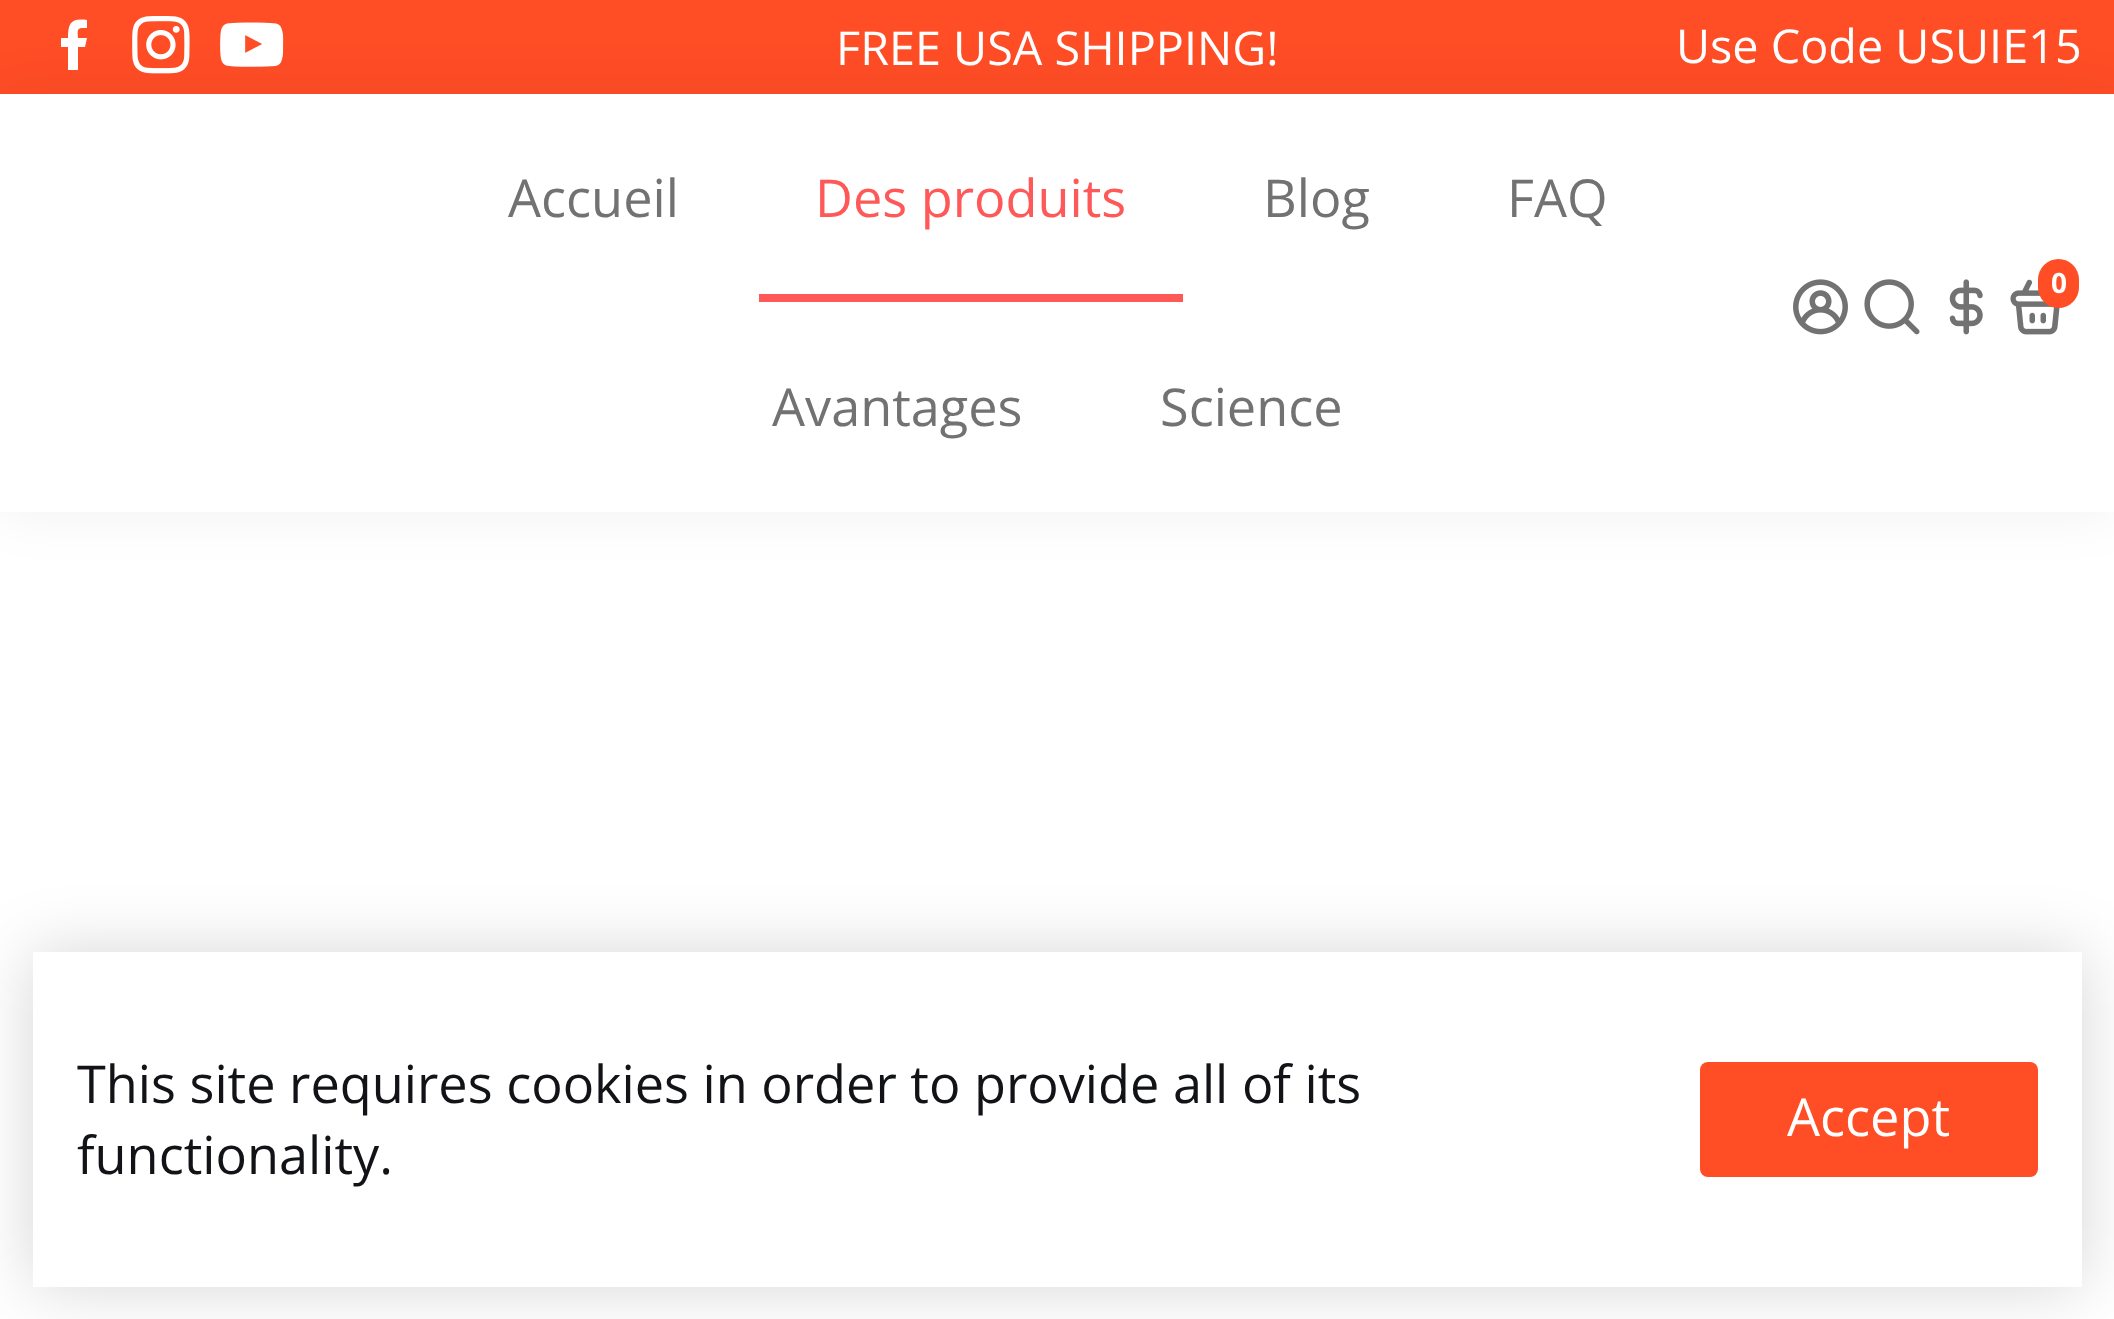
<svg xmlns="http://www.w3.org/2000/svg" xmlns:xlink="http://www.w3.org/1999/xlink" width="2114" height="1319" viewBox="0 0 2114 1319">
<style>
.cls-1{font:46.75px Open Sans;fill:#ffffff}
.cls-2{font:52.25px Open Sans;fill:#727272}
.cls-3{font:52.25px Open Sans;fill:#ff5858}
.cls-4{font:bold 28px Open Sans;fill:#ffffff}
.cls-5{font:52.25px Open Sans;fill:#121317}
.cls-6{font:52.25px Open Sans;fill:#ffffff}
</style>
<rect width="100%" height="100%" fill="#ffffff"/>
<rect fill="#ff4d26" x="0" y="0" width="2114" height="94"/>
<rect fill="#000000" fill-opacity="0.06" filter="blur(27.5px)" x="0" y="94" width="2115" height="418"/>
<path fill="#ffffff" d="M82 28H87V20C71 18 68 23 68 38H61V47H68V70H78V47H85L87 38H78C78 34 76 28 82 28Z"/>
<image xlink:href="image0.png" x="132" y="16" width="58" height="58"/>
<image xlink:href="image1.png" x="220" y="22" width="64" height="45"/>
<rect fill="#ffffff" x="0" y="94" width="2114" height="418"/>
<rect fill="#ff5858" x="759" y="294" width="424" height="8"/>
<image xlink:href="image2.png" x="1793" y="279" width="55" height="56"/>
<image xlink:href="image3.png" x="1864" y="279" width="56" height="56"/>
<image xlink:href="image4.png" x="1949" y="279" width="34" height="56"/>
<image xlink:href="image5.png" x="2010" y="279" width="50" height="56"/>
<rect fill="#ff4d26" x="2038" y="259" width="41" height="49" rx="20.5"/>
<rect fill="#000000" fill-opacity="0.16" filter="blur(33px)" x="33" y="952" width="2049" height="335"/>
<rect fill="#ffffff" x="33" y="952" width="2049" height="335"/>
<rect fill="#ff4d26" x="1700" y="1062" width="338" height="115" rx="8"/>
<text class="cls-1" x="836" y="65">FREE USA SHIPPING!</text>
<text class="cls-1" x="1676" y="63">Use Code USUIE15</text>
<text class="cls-2" x="508" y="217">Accueil</text>
<text class="cls-3" x="815" y="217">Des produits</text>
<text class="cls-2" x="1263" y="217">Blog</text>
<text class="cls-2" x="1507" y="217">FAQ</text>
<text class="cls-2" x="772" y="426">Avantages</text>
<text class="cls-2" x="1160" y="426">Science</text>
<text class="cls-4" x="2051" y="293">0</text>
<text class="cls-5"><tspan x="77" y="1103">This site requires cookies in order to provide all of its</tspan><tspan x="77" y="1174">functionality.</tspan></text>
<text class="cls-6" x="1787" y="1136">Accept</text>
</svg>
